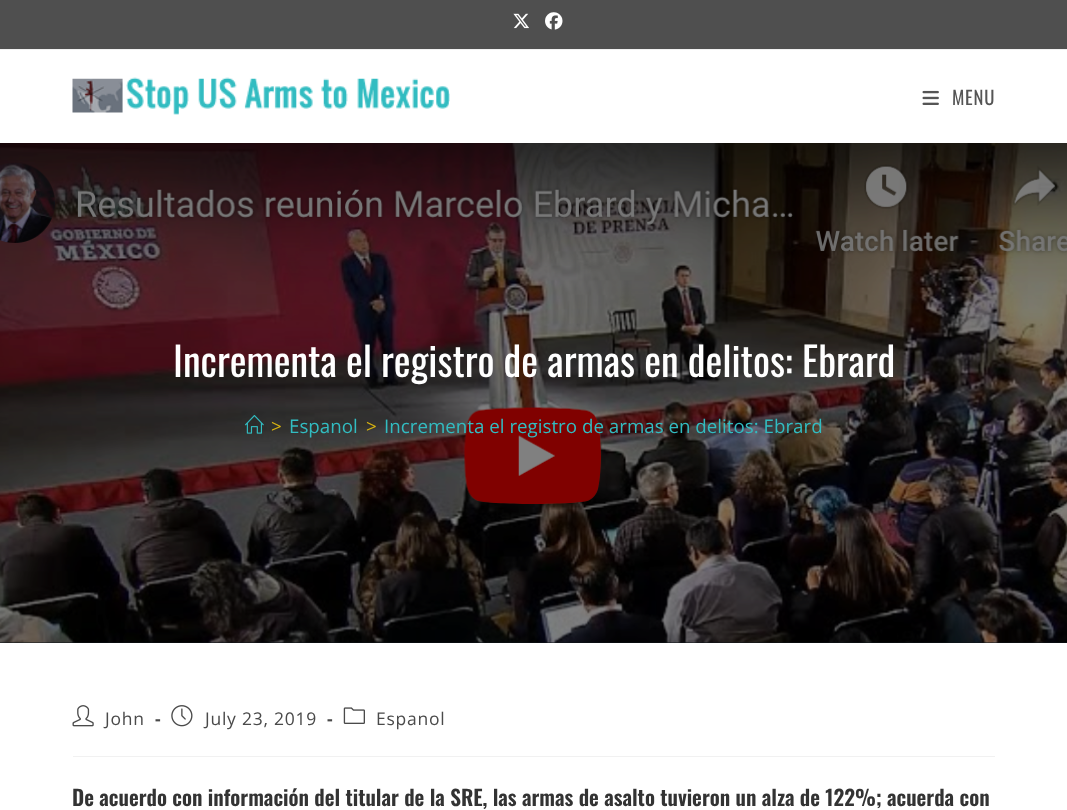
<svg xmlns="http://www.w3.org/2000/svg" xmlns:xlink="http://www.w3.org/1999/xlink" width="1067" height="810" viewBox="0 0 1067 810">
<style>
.cls-1{font:18.75px Oswald;letter-spacing:0.75px;fill:#555555}
.cls-2{font:40px Oswald;fill:#ffffff}
.cls-3{font:18.75px Open Sans;fill:#d9b310}
.cls-4{font:18.75px Open Sans;fill:#32bcc1}
.cls-5{font:17.5px Open Sans;letter-spacing:0.75px;fill:#4a4a4a}
.cls-6{font:bold 17.5px Open Sans;letter-spacing:0.75px;fill:#4a4a4a}
.cls-7{font:600 21.25px Oswald;fill:#333333}
</style>
<rect width="100%" height="100%" fill="#ffffff"/>
<rect fill="#4f4f4f" x="0" y="0" width="1067" height="49"/>
<rect fill="#f1f1f1" x="0" y="49" width="1067" height="1"/>
<image xlink:href="image0.png" x="513" y="13" width="16" height="16"/>
<image xlink:href="image1.png" x="545" y="12" width="18" height="18"/>
<image xlink:href="image2.png" x="72" y="77" width="378" height="38"/>
<image xlink:href="image3.png" x="922" y="90" width="17" height="15"/>
<rect fill="#0f1419" x="0" y="642" width="1067" height="1"/>
<image xlink:href="image4.png" x="0" y="143" width="1067" height="500"/>
<image xlink:href="image5.png" x="245" y="415" width="19" height="19"/>
<rect fill="#f1f1f1" x="73" y="756" width="922" height="1"/>
<image xlink:href="image6.png" x="72" y="705" width="22" height="22"/>
<image xlink:href="image7.png" x="171" y="705" width="22" height="22"/>
<image xlink:href="image8.png" x="343" y="707" width="22" height="17"/>
<text class="cls-1" x="952" y="105">MENU</text>
<text class="cls-2" x="173" y="377">Incrementa el registro de armas en delitos: Ebrard</text>
<text class="cls-3" x="271" y="433">&gt;</text>
<text class="cls-4" x="289" y="433">Espanol</text>
<text class="cls-3" x="366" y="433">&gt;</text>
<text class="cls-4" x="384" y="433">Incrementa el registro de armas en delitos: Ebrard</text>
<text class="cls-5" x="105" y="725">John</text>
<text class="cls-6" x="155" y="725">-</text>
<text class="cls-5" x="205" y="725">July 23, 2019</text>
<text class="cls-6" x="327" y="725">-</text>
<text class="cls-5" x="376" y="725">Espanol</text>
<text class="cls-7" x="72" y="806">De acuerdo con información del titular de la SRE, las armas de asalto tuvieron un alza de 122%; acuerda con</text>
</svg>
